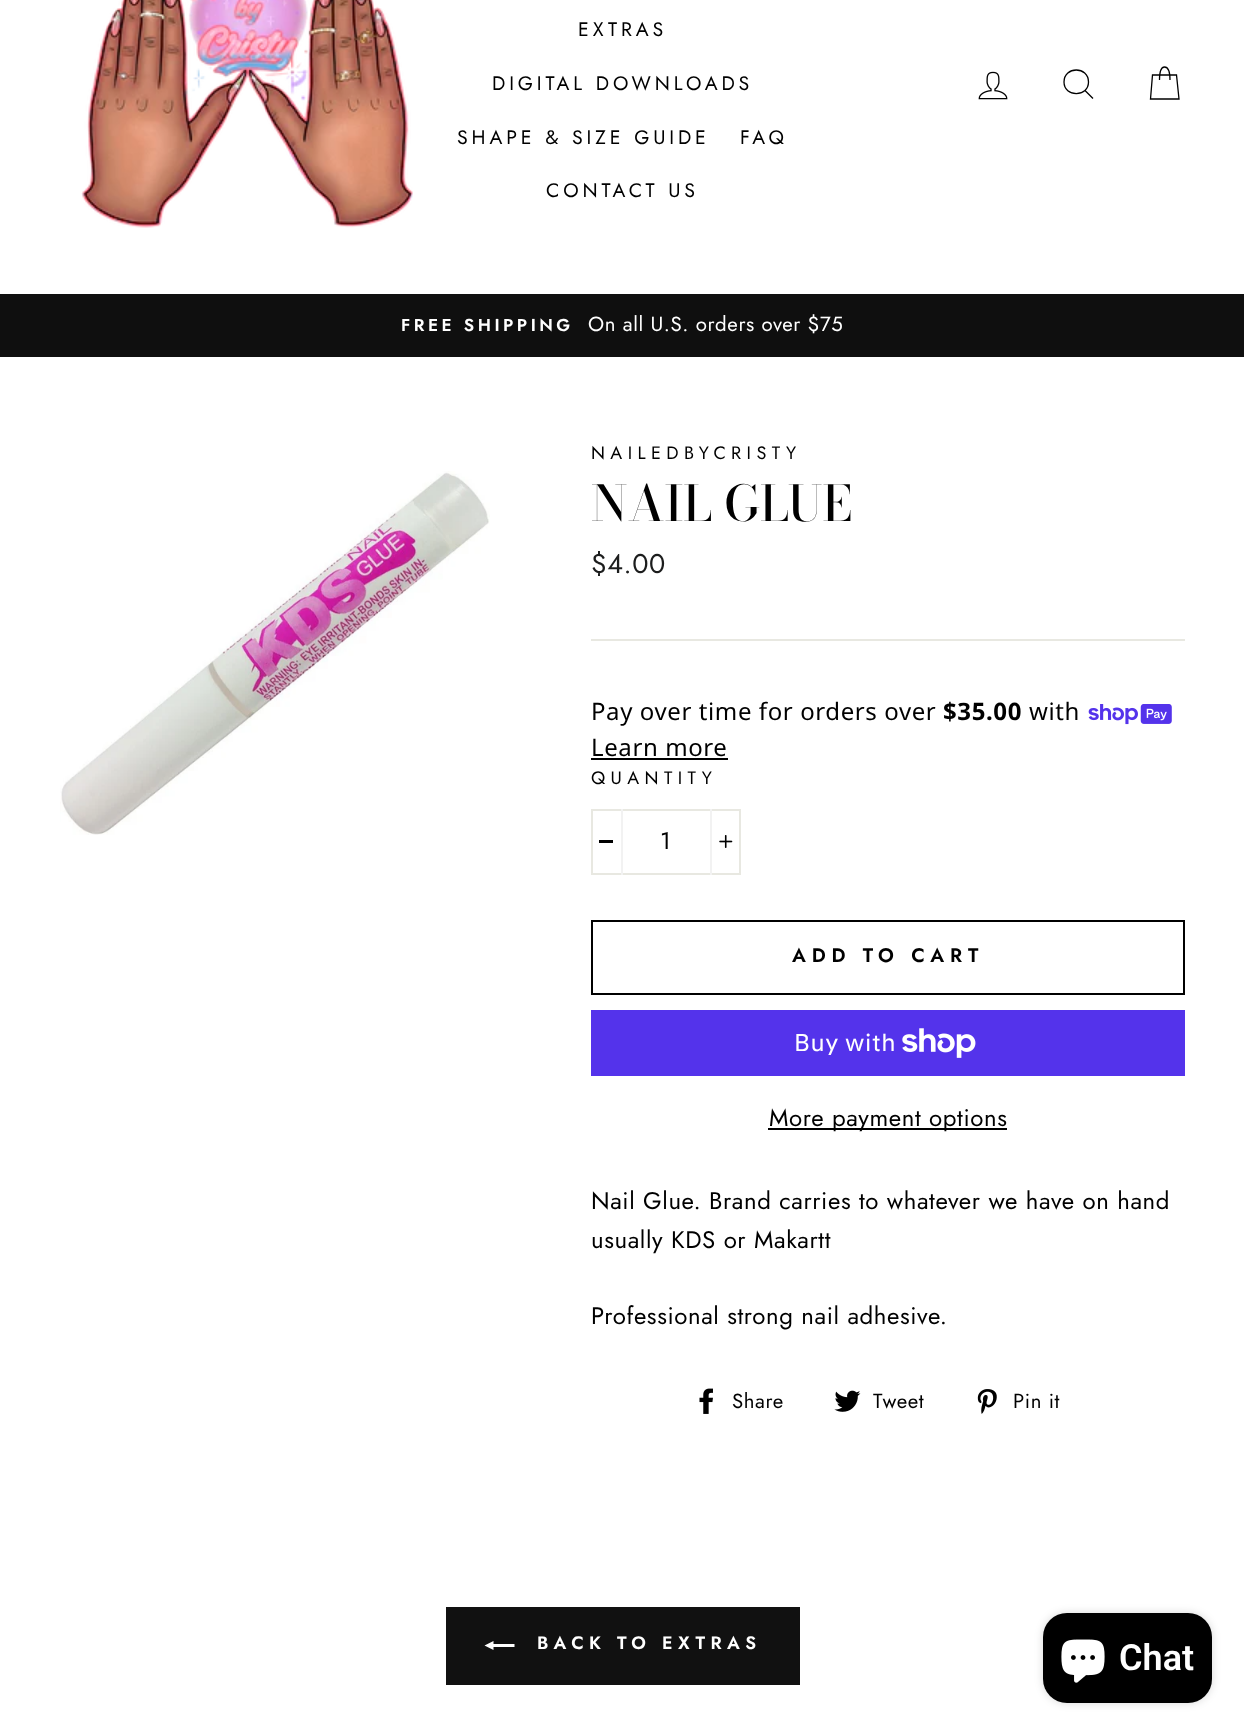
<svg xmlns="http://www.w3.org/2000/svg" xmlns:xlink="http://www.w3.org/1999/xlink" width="1244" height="1733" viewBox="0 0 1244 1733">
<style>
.cls-1{font:19.5px Jost;letter-spacing:3.9px;fill:#000000}
.cls-2{font:600 17.25px Jost;letter-spacing:3.5px;fill:#ffffff}
.cls-3{font:20.4px Jost;letter-spacing:0.6px;fill:#ffffff}
.cls-4{font:18px Jost;letter-spacing:5.4px;fill:#000000}
.cls-5{font:500 49px Bodoni Moda;fill:#000000}
.cls-6{font:27px Jost;letter-spacing:0.6px;fill:#1c1d1d}
.cls-7{font:24px Noto Sans;letter-spacing:0.6px;fill:#000000}
.cls-8{font:bold 24px Noto Sans;letter-spacing:0.6px;fill:#000000}
.cls-9{font:24px Jost;letter-spacing:0.6px;fill:#000000}
.cls-10{font:600 19.5px Jost;letter-spacing:5.8px;fill:#000000}
.cls-11{font:24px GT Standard;letter-spacing:0.6px;fill:#ffffff}
.cls-12{font:20.4px Jost;letter-spacing:0.6px;fill:#000000}
.cls-13{font:600 18px Jost;letter-spacing:5.4px;fill:#ffffff}
.cls-14{font:600 36px Roboto;fill:#ffffff}
</style>
<rect width="100%" height="100%" fill="#ffffff"/>
<image xlink:href="image0.png" x="81" y="0" width="332" height="228"/>
<image xlink:href="image1.png" x="978" y="71" width="30" height="29"/>
<path fill="none" stroke="#000000" stroke-width="1.3" d="M1088.5 82C1088.5 97.5 1064 97.5 1064 82C1064 66 1088.5 66 1088.5 82ZM1093 98.5L1085 90.5"/>
<path fill="none" stroke="#000000" stroke-width="1.3" d="M1159.5 80C1159.5 69.5 1161.5 67 1164.5 67C1167.5 67 1170 69.5 1170 80M1152.5 75H1176.5L1179 99H1150.5Z"/>
<rect fill="#0f0f0f" x="0" y="294" width="1244" height="63"/>
<image xlink:href="image2.png" x="60" y="471" width="430" height="364"/>
<rect fill="#e8e8e1" x="591" y="639" width="594" height="2"/>
<image xlink:href="image3.png" x="1088" y="704" width="84" height="21"/>
<rect fill="#000000" x="591" y="758" width="137" height="2"/>
<rect fill="none" stroke="#e8e8e1" stroke-width="2" x="592" y="810" width="148" height="64"/>
<rect fill="#f2f2f2" x="621" y="809" width="2" height="66"/>
<rect fill="#000000" x="599" y="840" width="14" height="3"/>
<rect fill="#f2f2f2" x="710" y="809" width="2" height="66"/>
<image xlink:href="image4.png" x="719" y="835" width="14" height="13"/>
<rect fill="none" stroke="#000000" stroke-width="2" x="592" y="921" width="592" height="73"/>
<rect fill="#5433eb" x="591" y="1010" width="594" height="66"/>
<image xlink:href="image5.png" x="902" y="1028" width="74" height="30"/>
<rect fill="#000000" x="768" y="1128" width="239" height="2"/>
<image xlink:href="image6.png" x="699" y="1388" width="14" height="26"/>
<image xlink:href="image7.png" x="834" y="1390" width="27" height="22"/>
<image xlink:href="image8.png" x="977" y="1389" width="20" height="25"/>
<rect fill="#111111" x="446" y="1607" width="354" height="78"/>
<path fill="#ffffff" d="M514.5 1644V1647H493.5V1650L484.5 1645.5L493.5 1641V1644Z"/>
<rect fill="#000000" fill-opacity="0.15" filter="blur(4px)" x="1043" y="1613" width="169" height="90" rx="24"/>
<rect fill="#000000" x="1043" y="1613" width="169" height="90" rx="24"/>
<image xlink:href="image9.png" x="1061" y="1639" width="44" height="44"/>
<text class="cls-1" x="578" y="36">EXTRAS</text>
<text class="cls-1" x="492" y="90">DIGITAL DOWNLOADS</text>
<text class="cls-1" x="457" y="144">SHAPE &amp; SIZE GUIDE</text>
<text class="cls-1" x="740" y="144">FAQ</text>
<text class="cls-1" x="546" y="197">CONTACT US</text>
<text class="cls-2" x="401" y="331">FREE SHIPPING</text>
<text class="cls-3" x="588" y="331">On all U.S. orders over $75</text>
<text class="cls-4" x="591" y="459">NAILEDBYCRISTY</text>
<text class="cls-5" x="591" y="521">NAIL GLUE</text>
<text class="cls-6" x="591" y="573">$4.00</text>
<text class="cls-7" x="591" y="720">Pay over time for orders over</text>
<text class="cls-8" x="943" y="720">$35.00</text>
<text class="cls-7" x="1029" y="720">with</text>
<text class="cls-7" x="591" y="756">Learn more</text>
<text class="cls-4" x="591" y="784">QUANTITY</text>
<text class="cls-9" x="660" y="849">1</text>
<text class="cls-10" x="792" y="962">ADD TO CART</text>
<text class="cls-11" x="794" y="1051">Buy with</text>
<text class="cls-9" x="769" y="1126">More payment options</text>
<text class="cls-9"><tspan x="591" y="1209">Nail Glue. Brand carries to whatever we have on hand</tspan><tspan x="591" y="1248">usually KDS or Makartt</tspan></text>
<text class="cls-9" x="591" y="1324">Professional strong nail adhesive.</text>
<text class="cls-12" x="732" y="1408">Share</text>
<text class="cls-12" x="873" y="1408">Tweet</text>
<text class="cls-12" x="1013" y="1408">Pin it</text>
<text class="cls-13" x="537" y="1649">BACK TO EXTRAS</text>
<text class="cls-14" x="1119" y="1670">Chat</text>
</svg>
